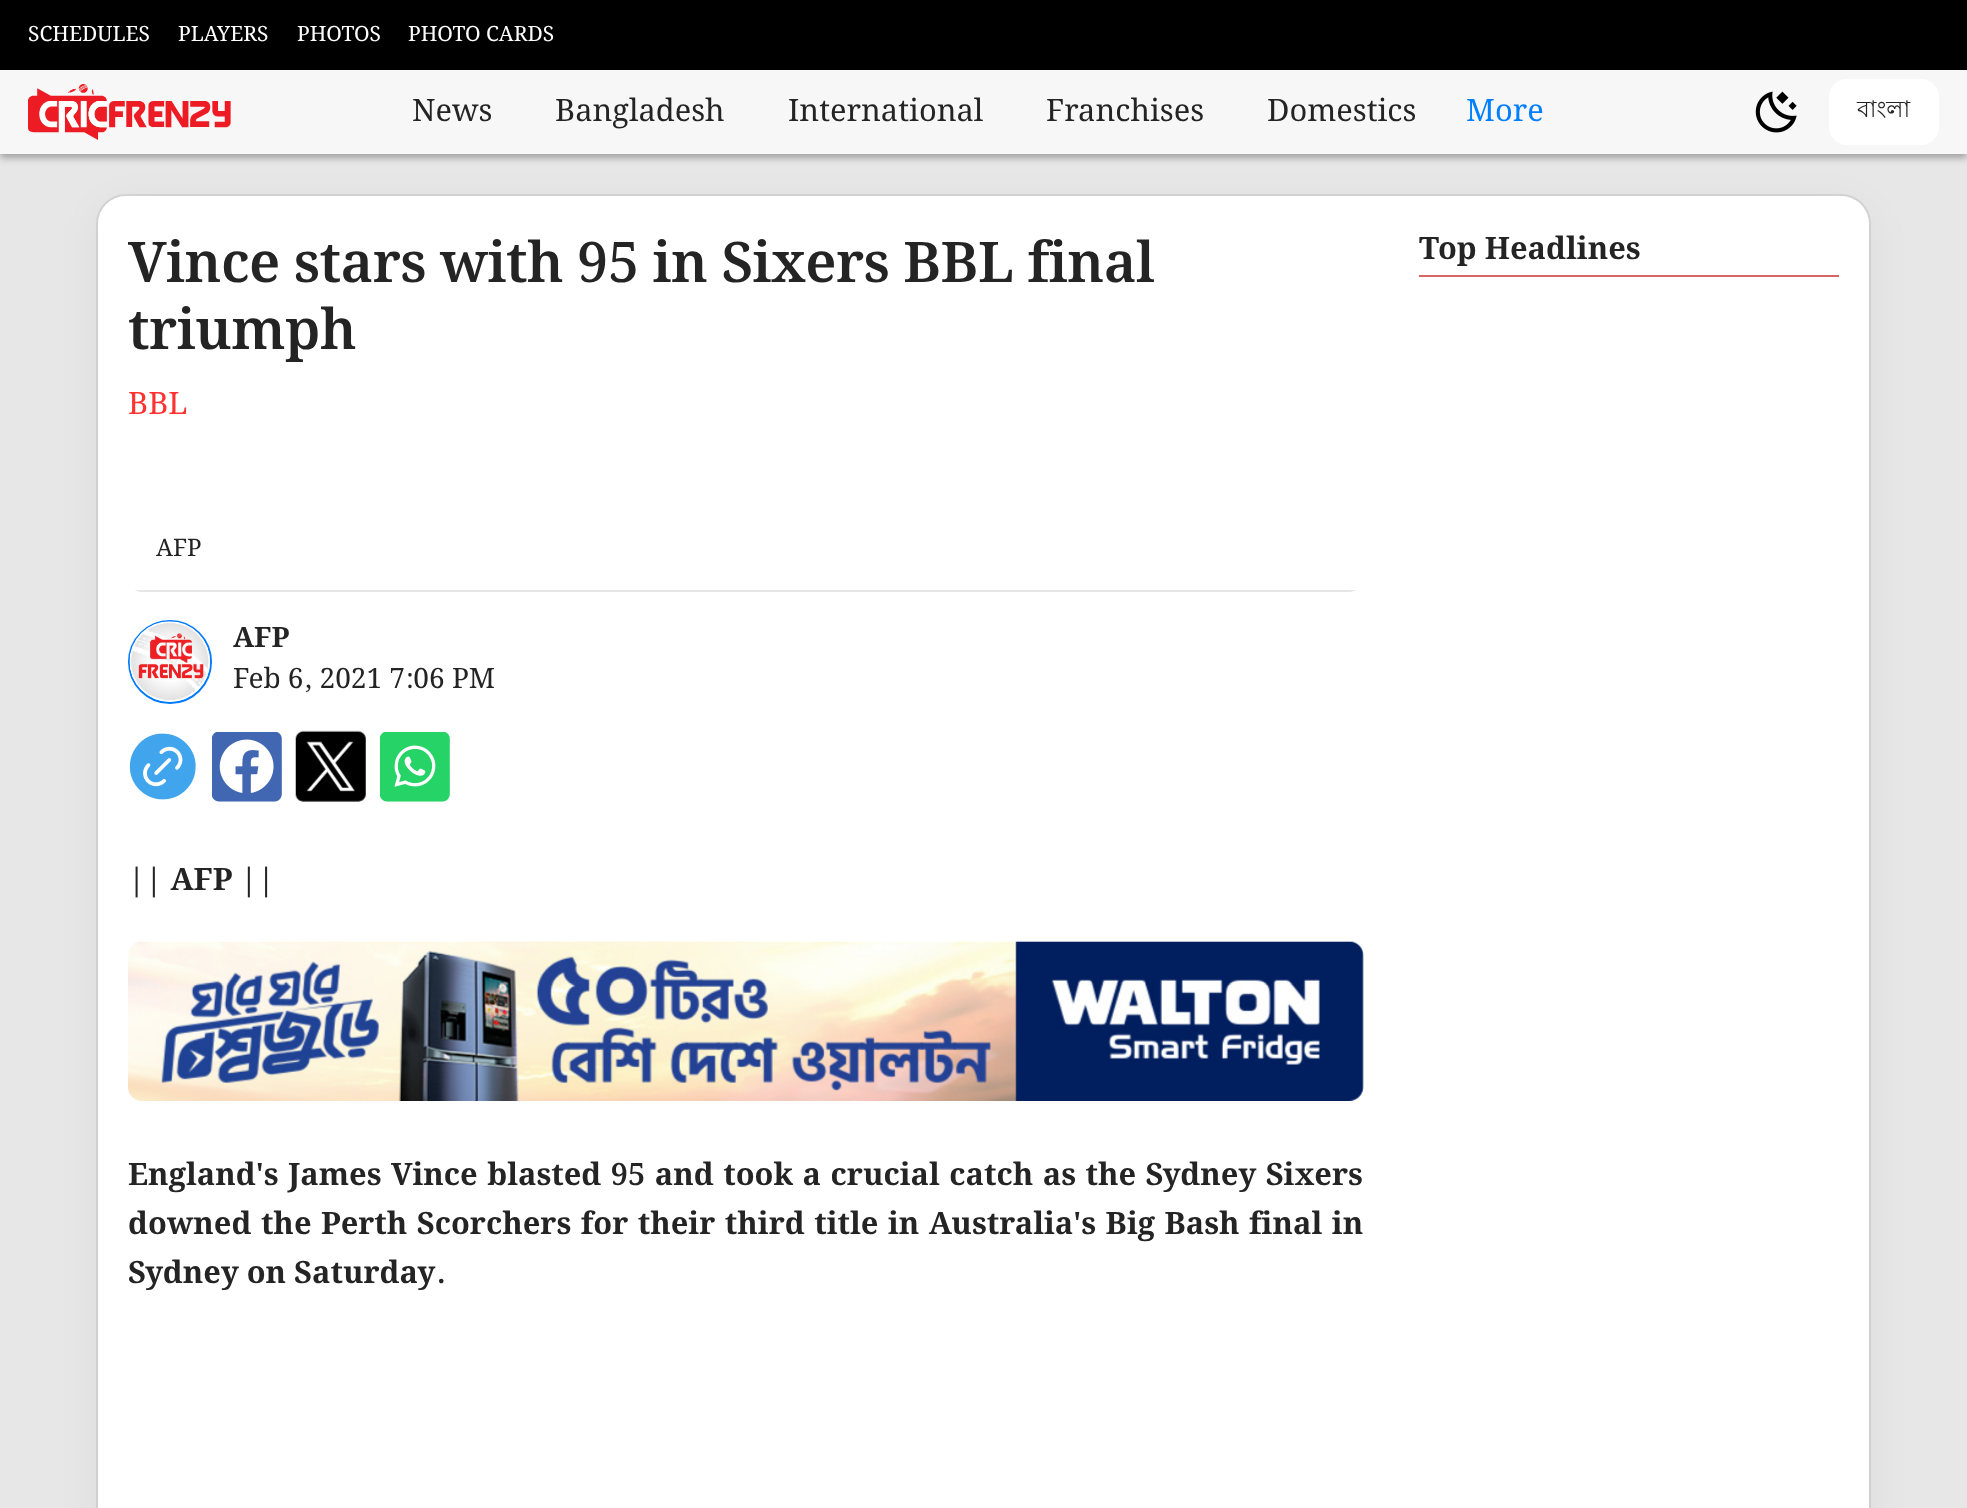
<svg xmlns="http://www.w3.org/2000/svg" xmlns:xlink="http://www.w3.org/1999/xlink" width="1967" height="1508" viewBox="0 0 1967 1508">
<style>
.cls-1{font:21px Noto Serif Bengali;fill:#ffffff}
.cls-2{font:30.8px Noto Serif Bengali;fill:#242424}
.cls-3{font:30.8px Noto Serif Bengali;fill:#007fff}
.cls-4{font:23px Lohit Bengali;fill:#242424}
.cls-5{font:600 56px Noto Serif Bengali;letter-spacing:-0.55px;fill:#242424}
.cls-6{font:30.8px Noto Serif Bengali;fill:#ff3131}
.cls-7{font:24px Noto Serif Bengali;fill:#242424}
.cls-8{font:bold 28px Noto Serif Bengali;fill:#242424}
.cls-9{font:28px Noto Serif Bengali;fill:#242424}
.cls-10{font:bold 30.8px Noto Serif Bengali;fill:#242424}
</style>
<defs>
<clipPath id="clip1"><rect x="128" y="466" width="1235" height="126" rx="14"/></clipPath>
</defs>
<rect width="100%" height="100%" fill="#e7e7e7"/>
<rect fill="#000000" x="0" y="0" width="1967" height="70"/>
<rect fill="#000000" fill-opacity="0.3" filter="blur(3.5px)" x="0" y="74" width="1967" height="84"/>
<rect fill="none" stroke="#d5d5d5" stroke-width="2" x="97" y="195" width="1773" height="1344" rx="29"/>
<rect fill="#000000" fill-opacity="0.05" filter="blur(21px)" x="98" y="207" width="1771" height="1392" rx="28"/>
<rect fill="#f7f7f7" x="0" y="70" width="1967" height="84"/>
<image xlink:href="image0.png" x="28" y="84" width="203" height="56"/>
<image xlink:href="image1.png" x="1755" y="91" width="42" height="42"/>
<rect fill="#ffffff" x="1829" y="79" width="110" height="66" rx="18"/>
<rect fill="#ffffff" x="98" y="196" width="1771" height="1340" rx="28"/>
<g clip-path="url(#clip1)">
<rect fill="#e6e6e6" x="128" y="590" width="1235" height="2"/>
</g>
<circle fill="none" stroke="#007aff" stroke-width="2" cx="170" cy="662" r="41"/>
<image xlink:href="image2.png" x="129" y="621" width="81" height="81"/>
<image xlink:href="image3.png" x="129" y="733" width="67" height="67"/>
<image xlink:href="image4.png" x="212" y="732" width="70" height="70"/>
<image xlink:href="image5.png" x="295" y="730" width="71" height="72"/>
<image xlink:href="image6.png" x="380" y="732" width="70" height="70"/>
<image xlink:href="image7.png" x="128" y="941" width="1236" height="160"/>
<rect fill="#d66666" x="1419" y="275" width="420" height="2"/>
<text class="cls-1" x="28" y="41">SCHEDULES</text>
<text class="cls-1" x="178" y="41">PLAYERS</text>
<text class="cls-1" x="297" y="41">PHOTOS</text>
<text class="cls-1" x="408" y="41">PHOTO CARDS</text>
<text class="cls-2" x="412" y="121">News</text>
<text class="cls-2" x="555" y="121">Bangladesh</text>
<text class="cls-2" x="788" y="121">International</text>
<text class="cls-2" x="1046" y="121">Franchises</text>
<text class="cls-2" x="1267" y="121">Domestics</text>
<text class="cls-3" x="1466" y="121">More</text>
<text class="cls-4" x="1857" y="117">বাংলা</text>
<text class="cls-5"><tspan x="128" y="282">Vince stars with 95 in Sixers BBL final</tspan><tspan x="128" y="349">triumph</tspan></text>
<text class="cls-6" x="128" y="414">BBL</text>
<text class="cls-7" x="156" y="556">AFP</text>
<text class="cls-8" x="233" y="647">AFP</text>
<text class="cls-9" x="233" y="688">Feb 6, 2021 7:06 PM</text>
<text class="cls-10" x="128" y="890">|| AFP ||</text>
<text class="cls-10"><tspan x="128" y="1185" word-spacing="1.5">England's James Vince blasted 95 and took a crucial catch as the Sydney Sixers</tspan><tspan x="128" y="1234" word-spacing="1.5">downed the Perth Scorchers for their third title in Australia's Big Bash final in</tspan><tspan x="128" y="1283">Sydney on Saturday.</tspan></text>
<text class="cls-10" x="1419" y="259">Top Headlines</text>
</svg>
